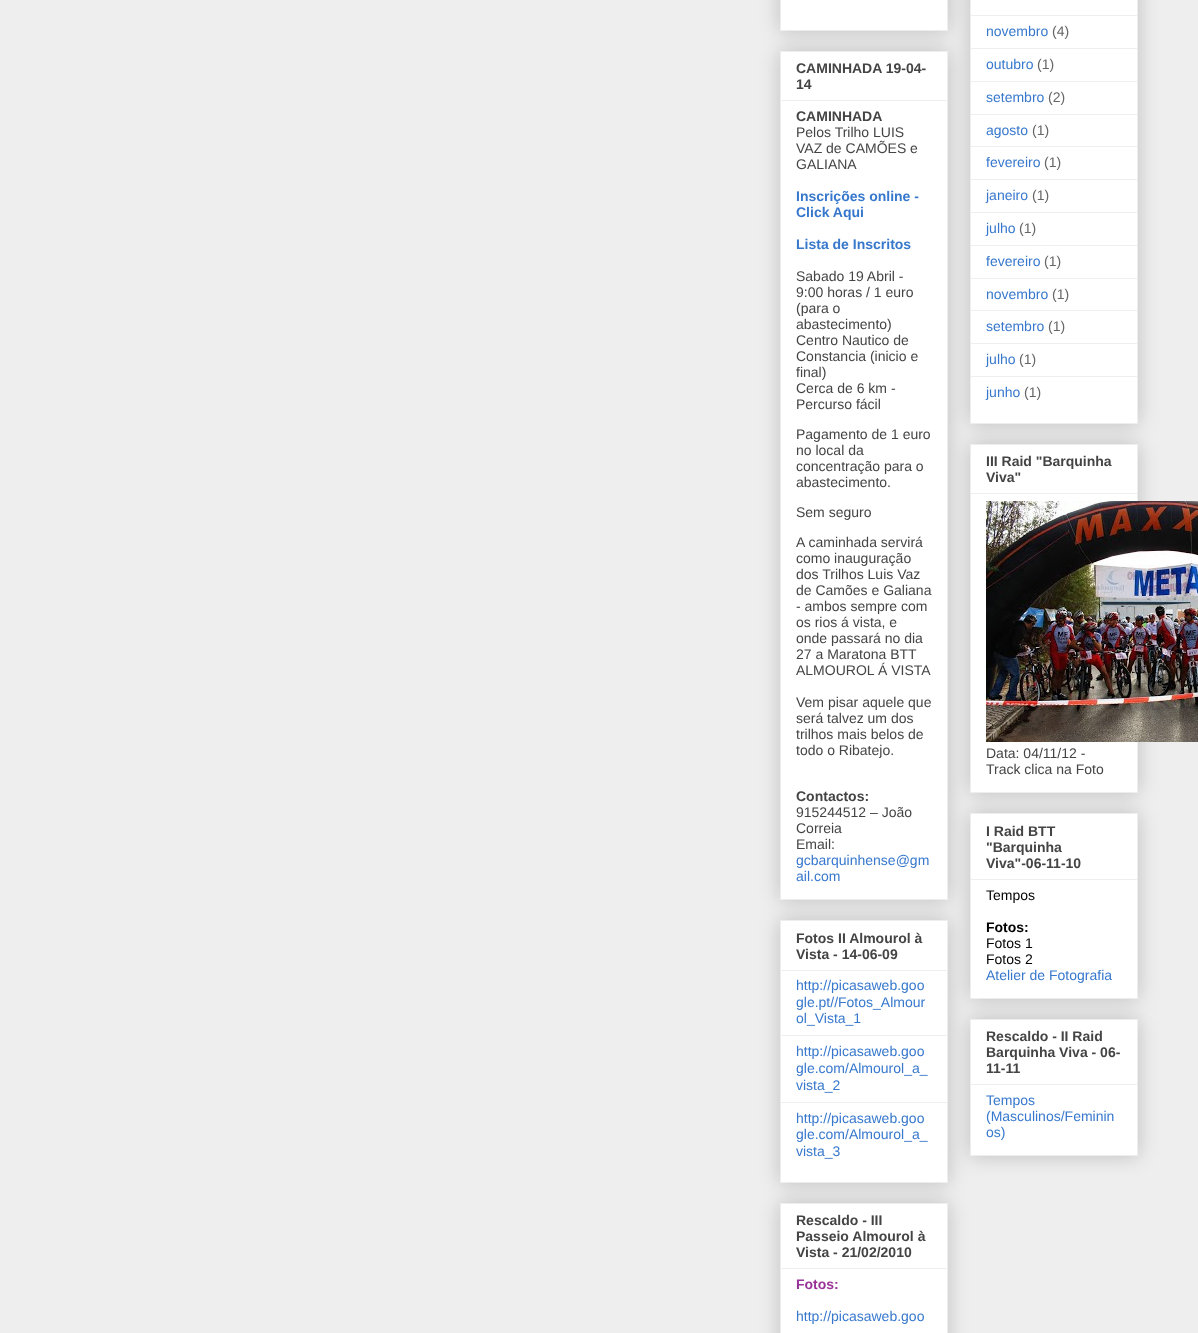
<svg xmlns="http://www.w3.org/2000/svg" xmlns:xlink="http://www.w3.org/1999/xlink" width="1198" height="1333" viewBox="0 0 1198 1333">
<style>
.cls-1{font:bold 14px Liberation Sans;fill:#444444}
.cls-2{font:14px Liberation Sans;fill:#444444}
.cls-3{font:bold 14px Liberation Sans;fill:#3778cd}
.cls-4{font:14px Liberation Sans;fill:#3778cd}
.cls-5{font:bold 14px Liberation Sans;fill:#993399}
.cls-6{font:14px Liberation Sans;fill:#666666}
.cls-7{font:14px Liberation Sans;fill:#000000}
.cls-8{font:bold 14px Liberation Sans;fill:#000000}
</style>
<rect width="100%" height="100%" fill="#eeeeee"/>
<rect fill="#000000" fill-opacity="0.2" filter="blur(10px)" x="780" y="-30" width="168" height="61"/>
<rect fill="#ffffff" stroke="#eeeeee" x="780.5" y="-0.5" width="167" height="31"/>
<rect fill="#000000" fill-opacity="0.2" filter="blur(10px)" x="780" y="51" width="168" height="849"/>
<rect fill="#ffffff" stroke="#eeeeee" x="780.5" y="51.5" width="167" height="848"/>
<rect fill="#eeeeee" x="781" y="100" width="166" height="1"/>
<rect fill="#000000" fill-opacity="0.2" filter="blur(10px)" x="780" y="920" width="168" height="263"/>
<rect fill="#ffffff" stroke="#eeeeee" x="780.5" y="920.5" width="167" height="262"/>
<rect fill="#eeeeee" x="781" y="970" width="166" height="1"/>
<rect fill="#eeeeee" x="781" y="1035" width="166" height="1"/>
<rect fill="#eeeeee" x="781" y="1102" width="166" height="1"/>
<rect fill="#000000" fill-opacity="0.2" filter="blur(10px)" x="780" y="1203" width="168" height="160"/>
<rect fill="#ffffff" stroke="#eeeeee" x="780.5" y="1203.5" width="167" height="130"/>
<rect fill="#eeeeee" x="781" y="1268" width="166" height="1"/>
<rect fill="#000000" fill-opacity="0.2" filter="blur(10px)" x="970" y="-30" width="168" height="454"/>
<rect fill="#ffffff" stroke="#eeeeee" x="970.5" y="-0.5" width="167" height="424"/>
<rect fill="#eeeeee" x="971" y="15" width="166" height="1"/>
<rect fill="#eeeeee" x="971" y="48" width="166" height="1"/>
<rect fill="#eeeeee" x="971" y="81" width="166" height="1"/>
<rect fill="#eeeeee" x="971" y="114" width="166" height="1"/>
<rect fill="#eeeeee" x="971" y="146" width="166" height="1"/>
<rect fill="#eeeeee" x="971" y="179" width="166" height="1"/>
<rect fill="#eeeeee" x="971" y="212" width="166" height="1"/>
<rect fill="#eeeeee" x="971" y="245" width="166" height="1"/>
<rect fill="#eeeeee" x="971" y="278" width="166" height="1"/>
<rect fill="#eeeeee" x="971" y="310" width="166" height="1"/>
<rect fill="#eeeeee" x="971" y="343" width="166" height="1"/>
<rect fill="#eeeeee" x="971" y="376" width="166" height="1"/>
<rect fill="#000000" fill-opacity="0.2" filter="blur(10px)" x="970" y="444" width="168" height="349"/>
<rect fill="#ffffff" stroke="#eeeeee" x="970.5" y="444.5" width="167" height="348"/>
<rect fill="#eeeeee" x="971" y="493" width="166" height="1"/>
<image xlink:href="image0.png" x="986" y="501" width="212" height="241"/>
<rect fill="#000000" fill-opacity="0.2" filter="blur(10px)" x="970" y="813" width="168" height="186"/>
<rect fill="#ffffff" stroke="#eeeeee" x="970.5" y="813.5" width="167" height="185"/>
<rect fill="#eeeeee" x="971" y="879" width="166" height="1"/>
<rect fill="#000000" fill-opacity="0.2" filter="blur(10px)" x="970" y="1019" width="168" height="137"/>
<rect fill="#ffffff" stroke="#eeeeee" x="970.5" y="1019.5" width="167" height="136"/>
<rect fill="#eeeeee" x="971" y="1084" width="166" height="1"/>
<text class="cls-1"><tspan x="796" y="73">CAMINHADA 19-04-</tspan><tspan x="796" y="89">14</tspan></text>
<text class="cls-1" x="796" y="121">CAMINHADA</text>
<text class="cls-2"><tspan x="796" y="137">Pelos Trilho LUIS</tspan><tspan x="796" y="153">VAZ de CAMÕES e</tspan><tspan x="796" y="169">GALIANA</tspan></text>
<text class="cls-3"><tspan x="796" y="201">Inscrições online -</tspan><tspan x="796" y="217">Click Aqui</tspan></text>
<text class="cls-3" x="796" y="249">Lista de Inscritos</text>
<text class="cls-2"><tspan x="796" y="281">Sabado 19 Abril -</tspan><tspan x="796" y="297">9:00 horas / 1 euro</tspan><tspan x="796" y="313">(para o</tspan><tspan x="796" y="329">abastecimento)</tspan><tspan x="796" y="345">Centro Nautico de</tspan><tspan x="796" y="361">Constancia (inicio e</tspan><tspan x="796" y="377">final)</tspan><tspan x="796" y="393">Cerca de 6 km -</tspan><tspan x="796" y="409">Percurso fácil</tspan></text>
<text class="cls-2"><tspan x="796" y="439">Pagamento de 1 euro</tspan><tspan x="796" y="455">no local da</tspan><tspan x="796" y="471">concentração para o</tspan><tspan x="796" y="487">abastecimento.</tspan></text>
<text class="cls-2" x="796" y="517">Sem seguro</text>
<text class="cls-2"><tspan x="796" y="547">A caminhada servirá</tspan><tspan x="796" y="563">como inauguração</tspan><tspan x="796" y="579">dos Trilhos Luis Vaz</tspan><tspan x="796" y="595">de Camões e Galiana</tspan><tspan x="796" y="611">- ambos sempre com</tspan><tspan x="796" y="627">os rios á vista, e</tspan><tspan x="796" y="643">onde passará no dia</tspan><tspan x="796" y="659">27 a Maratona BTT</tspan><tspan x="796" y="675">ALMOUROL Á VISTA</tspan></text>
<text class="cls-2"><tspan x="796" y="707">Vem pisar aquele que</tspan><tspan x="796" y="723">será talvez um dos</tspan><tspan x="796" y="739">trilhos mais belos de</tspan><tspan x="796" y="755">todo o Ribatejo.</tspan></text>
<text class="cls-1" x="796" y="801">Contactos:</text>
<text class="cls-2"><tspan x="796" y="817">915244512 – João</tspan><tspan x="796" y="833">Correia</tspan><tspan x="796" y="849">Email:</tspan></text>
<text class="cls-4"><tspan x="796" y="865">gcbarquinhense@gm</tspan><tspan x="796" y="881">ail.com</tspan></text>
<text class="cls-1"><tspan x="796" y="943">Fotos II Almourol à</tspan><tspan x="796" y="959">Vista - 14-06-09</tspan></text>
<text class="cls-4"><tspan x="796" y="990">http://picasaweb.goo</tspan><tspan x="796" y="1007">gle.pt//Fotos_Almour</tspan><tspan x="796" y="1023">ol_Vista_1</tspan></text>
<text class="cls-4"><tspan x="796" y="1056">http://picasaweb.goo</tspan><tspan x="796" y="1073">gle.com/Almourol_a_</tspan><tspan x="796" y="1090">vista_2</tspan></text>
<text class="cls-4"><tspan x="796" y="1123">http://picasaweb.goo</tspan><tspan x="796" y="1139">gle.com/Almourol_a_</tspan><tspan x="796" y="1156">vista_3</tspan></text>
<text class="cls-1"><tspan x="796" y="1225">Rescaldo - III</tspan><tspan x="796" y="1241">Passeio Almourol à</tspan><tspan x="796" y="1257">Vista - 21/02/2010</tspan></text>
<text class="cls-5" x="796" y="1289">Fotos:</text>
<text class="cls-4" x="796" y="1321">http://picasaweb.goo</text>
<text class="cls-4" x="986" y="36">novembro</text>
<text class="cls-6" x="1052" y="36">(4)</text>
<text class="cls-4" x="986" y="69">outubro</text>
<text class="cls-6" x="1037" y="69">(1)</text>
<text class="cls-4" x="986" y="102">setembro</text>
<text class="cls-6" x="1048" y="102">(2)</text>
<text class="cls-4" x="986" y="135">agosto</text>
<text class="cls-6" x="1032" y="135">(1)</text>
<text class="cls-4" x="986" y="167">fevereiro</text>
<text class="cls-6" x="1044" y="167">(1)</text>
<text class="cls-4" x="986" y="200">janeiro</text>
<text class="cls-6" x="1032" y="200">(1)</text>
<text class="cls-4" x="986" y="233">julho</text>
<text class="cls-6" x="1019" y="233">(1)</text>
<text class="cls-4" x="986" y="266">fevereiro</text>
<text class="cls-6" x="1044" y="266">(1)</text>
<text class="cls-4" x="986" y="299">novembro</text>
<text class="cls-6" x="1052" y="299">(1)</text>
<text class="cls-4" x="986" y="331">setembro</text>
<text class="cls-6" x="1048" y="331">(1)</text>
<text class="cls-4" x="986" y="364">julho</text>
<text class="cls-6" x="1019" y="364">(1)</text>
<text class="cls-4" x="986" y="397">junho</text>
<text class="cls-6" x="1024" y="397">(1)</text>
<text class="cls-1"><tspan x="986" y="466">III Raid "Barquinha</tspan><tspan x="986" y="482">Viva"</tspan></text>
<text class="cls-2"><tspan x="986" y="758">Data: 04/11/12 -</tspan><tspan x="986" y="774">Track clica na Foto</tspan></text>
<text class="cls-1"><tspan x="986" y="836">I Raid BTT</tspan><tspan x="986" y="852">"Barquinha</tspan><tspan x="986" y="868">Viva"-06-11-10</tspan></text>
<text class="cls-7" x="986" y="900">Tempos</text>
<text class="cls-8" x="986" y="932">Fotos:</text>
<text class="cls-7"><tspan x="986" y="948">Fotos 1</tspan><tspan x="986" y="964">Fotos 2</tspan></text>
<text class="cls-4" x="986" y="980">Atelier de Fotografia</text>
<text class="cls-1"><tspan x="986" y="1041">Rescaldo - II Raid</tspan><tspan x="986" y="1057">Barquinha Viva - 06-</tspan><tspan x="986" y="1073">11-11</tspan></text>
<text class="cls-4"><tspan x="986" y="1105">Tempos</tspan><tspan x="986" y="1121">(Masculinos/Feminin</tspan><tspan x="986" y="1137">os)</tspan></text>
</svg>
